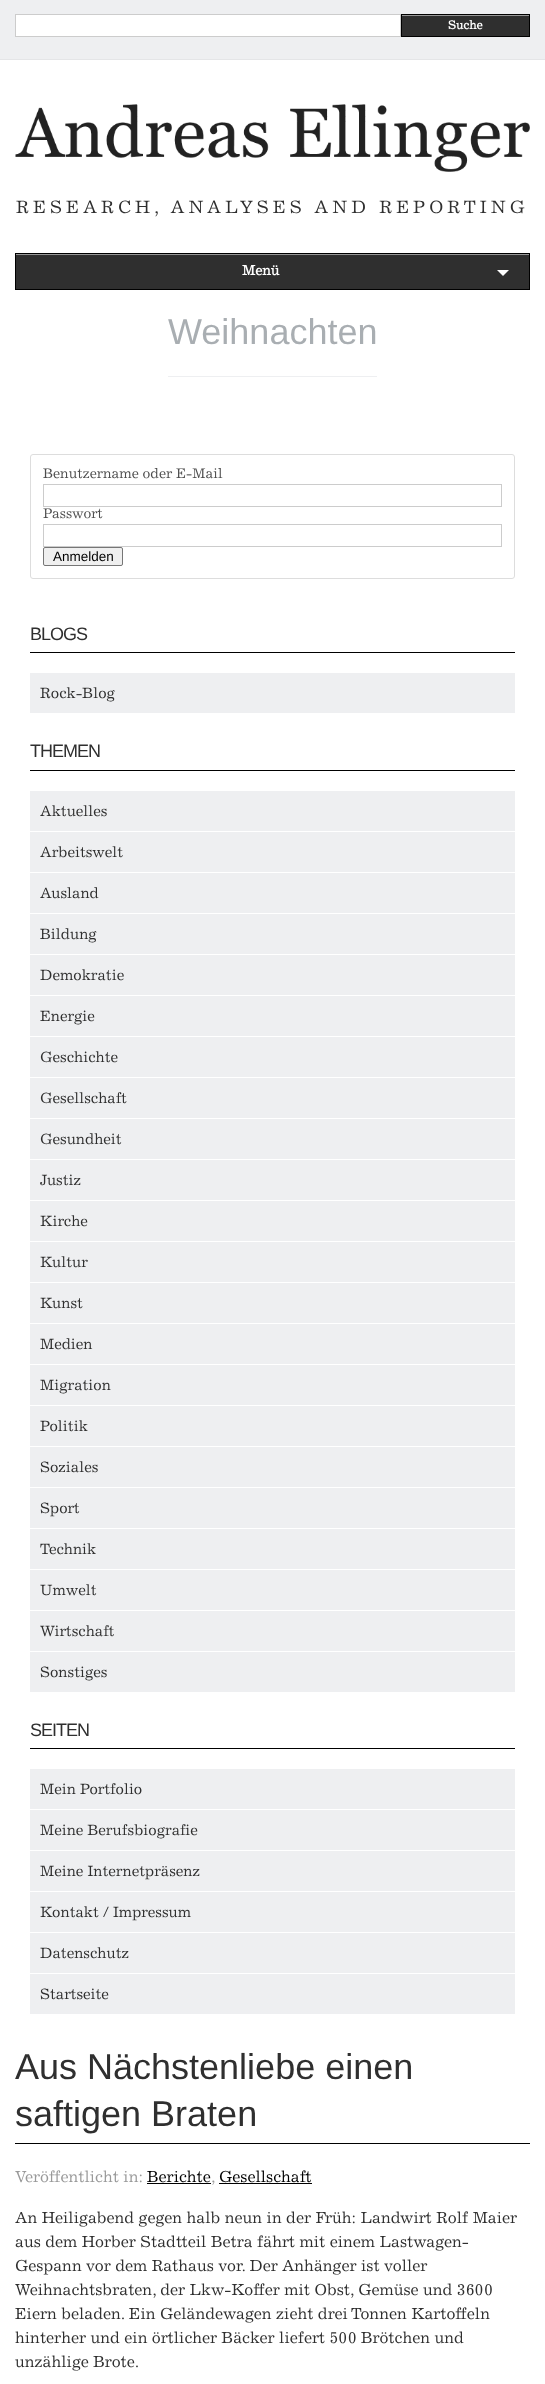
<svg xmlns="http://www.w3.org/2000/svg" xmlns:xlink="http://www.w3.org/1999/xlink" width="545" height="2384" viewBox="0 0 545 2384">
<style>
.cls-1{font:bold 12px 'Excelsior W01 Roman';fill:#ffffff}
.cls-2{font:18px 'Excelsior W01 Roman';letter-spacing:4px;fill:#2f2f2f}
.cls-3{font:bold 14px 'Excelsior W01 Roman';fill:#ffffff}
.cls-4{font:36px Liberation Sans;fill:#a9aeb2}
.cls-5{font:14px 'Excelsior W01 Roman';fill:#4d4d4d}
.cls-6{font:13.5px Liberation Sans;fill:#000000}
.cls-7{font:18px Liberation Sans;letter-spacing:-1px;fill:#2f2f2f}
.cls-8{font:15px 'Excelsior W01 Roman';fill:#2f2f2f}
.cls-9{font:36px Liberation Sans;fill:#2f2f2f}
.cls-10{font:16px 'Excelsior W01 Roman';fill:#999999}
.cls-11{font:16px 'Excelsior W01 Roman';fill:#000000}
.cls-12{font:16px 'Excelsior W01 Roman';fill:#2f2f2f}
</style>
<rect width="100%" height="100%" fill="#ffffff"/>
<rect fill="#eeeff1" x="0" y="0" width="545" height="59"/>
<rect fill="#e4e5e7" x="0" y="59" width="545" height="1"/>
<rect fill="#ffffff" stroke="#cccccc" x="15.5" y="14.5" width="385" height="22"/>
<rect fill="#2f2f2f" x="402" y="16" width="127" height="20"/>
<rect fill="#979797" x="402" y="15" width="127" height="1"/>
<rect fill="none" stroke="#000000" x="401.5" y="14.5" width="128" height="22"/>
<image xlink:href="image0.png" x="15" y="104" width="515" height="68"/>
<rect fill="#2f2f2f" x="16" y="255" width="513" height="34"/>
<rect fill="#979797" x="16" y="254" width="513" height="1"/>
<rect fill="none" stroke="#000000" x="15.5" y="253.5" width="514" height="36"/>
<path fill="#ffffff" d="M497 270H509L503 276Z"/>
<rect fill="#eeeff1" x="168" y="376" width="209" height="1"/>
<rect fill="none" stroke="#dddddd" x="30.5" y="454.5" width="484" height="124" rx="2.5"/>
<rect fill="none" stroke="#cccccc" x="43.5" y="484.5" width="458" height="22"/>
<rect fill="none" stroke="#cccccc" x="43.5" y="524.5" width="458" height="22"/>
<rect fill="#efefef" stroke="#767676" x="43.5" y="547.5" width="79" height="18" rx="1.5"/>
<rect fill="#000000" x="30" y="652" width="485" height="1"/>
<rect fill="#eeeff1" x="30" y="673" width="485" height="40"/>
<rect fill="#000000" x="30" y="770" width="485" height="1"/>
<rect fill="#eeeff1" x="30" y="791" width="485" height="40"/>
<rect fill="#eeeff1" x="30" y="832" width="485" height="40"/>
<rect fill="#eeeff1" x="30" y="873" width="485" height="40"/>
<rect fill="#eeeff1" x="30" y="914" width="485" height="40"/>
<rect fill="#eeeff1" x="30" y="955" width="485" height="40"/>
<rect fill="#eeeff1" x="30" y="996" width="485" height="40"/>
<rect fill="#eeeff1" x="30" y="1037" width="485" height="40"/>
<rect fill="#eeeff1" x="30" y="1078" width="485" height="40"/>
<rect fill="#eeeff1" x="30" y="1119" width="485" height="40"/>
<rect fill="#eeeff1" x="30" y="1160" width="485" height="40"/>
<rect fill="#eeeff1" x="30" y="1201" width="485" height="40"/>
<rect fill="#eeeff1" x="30" y="1242" width="485" height="40"/>
<rect fill="#eeeff1" x="30" y="1283" width="485" height="40"/>
<rect fill="#eeeff1" x="30" y="1324" width="485" height="40"/>
<rect fill="#eeeff1" x="30" y="1365" width="485" height="40"/>
<rect fill="#eeeff1" x="30" y="1406" width="485" height="40"/>
<rect fill="#eeeff1" x="30" y="1447" width="485" height="40"/>
<rect fill="#eeeff1" x="30" y="1488" width="485" height="40"/>
<rect fill="#eeeff1" x="30" y="1529" width="485" height="40"/>
<rect fill="#eeeff1" x="30" y="1570" width="485" height="40"/>
<rect fill="#eeeff1" x="30" y="1611" width="485" height="40"/>
<rect fill="#eeeff1" x="30" y="1652" width="485" height="40"/>
<rect fill="#000000" x="30" y="1748" width="485" height="1"/>
<rect fill="#eeeff1" x="30" y="1769" width="485" height="40"/>
<rect fill="#eeeff1" x="30" y="1810" width="485" height="40"/>
<rect fill="#eeeff1" x="30" y="1851" width="485" height="40"/>
<rect fill="#eeeff1" x="30" y="1892" width="485" height="40"/>
<rect fill="#eeeff1" x="30" y="1933" width="485" height="40"/>
<rect fill="#eeeff1" x="30" y="1974" width="485" height="40"/>
<rect fill="#000000" x="15" y="2143" width="515" height="1"/>
<rect fill="#000000" x="147" y="2183" width="64" height="1"/>
<rect fill="#000000" x="219" y="2183" width="93" height="1"/>
<text class="cls-1" x="448" y="29">Suche</text>
<text class="cls-2" x="16" y="213">RESEARCH, ANALYSES AND REPORTING</text>
<text class="cls-3" x="242" y="275">Menü</text>
<text class="cls-4" x="168" y="344">Weihnachten</text>
<text class="cls-5" x="43" y="478">Benutzername oder E-Mail</text>
<text class="cls-5" x="43" y="518">Passwort</text>
<text class="cls-6" x="53" y="561">Anmelden</text>
<text class="cls-7" x="30" y="640">BLOGS</text>
<text class="cls-8" x="40" y="698">Rock-Blog</text>
<text class="cls-7" x="30" y="757">THEMEN</text>
<text class="cls-8" x="40" y="816">Aktuelles</text>
<text class="cls-8" x="40" y="857">Arbeitswelt</text>
<text class="cls-8" x="40" y="898">Ausland</text>
<text class="cls-8" x="40" y="939">Bildung</text>
<text class="cls-8" x="40" y="980">Demokratie</text>
<text class="cls-8" x="40" y="1021">Energie</text>
<text class="cls-8" x="40" y="1062">Geschichte</text>
<text class="cls-8" x="40" y="1103">Gesellschaft</text>
<text class="cls-8" x="40" y="1144">Gesundheit</text>
<text class="cls-8" x="40" y="1185">Justiz</text>
<text class="cls-8" x="40" y="1226">Kirche</text>
<text class="cls-8" x="40" y="1267">Kultur</text>
<text class="cls-8" x="40" y="1308">Kunst</text>
<text class="cls-8" x="40" y="1349">Medien</text>
<text class="cls-8" x="40" y="1390">Migration</text>
<text class="cls-8" x="40" y="1431">Politik</text>
<text class="cls-8" x="40" y="1472">Soziales</text>
<text class="cls-8" x="40" y="1513">Sport</text>
<text class="cls-8" x="40" y="1554">Technik</text>
<text class="cls-8" x="40" y="1595">Umwelt</text>
<text class="cls-8" x="40" y="1636">Wirtschaft</text>
<text class="cls-8" x="40" y="1677">Sonstiges</text>
<text class="cls-7" x="30" y="1736">SEITEN</text>
<text class="cls-8" x="40" y="1794">Mein Portfolio</text>
<text class="cls-8" x="40" y="1835">Meine Berufsbiografie</text>
<text class="cls-8" x="40" y="1876">Meine Internetpräsenz</text>
<text class="cls-8" x="40" y="1917">Kontakt / Impressum</text>
<text class="cls-8" x="40" y="1958">Datenschutz</text>
<text class="cls-8" x="40" y="1999">Startseite</text>
<text class="cls-9"><tspan x="15" y="2079">Aus Nächstenliebe einen</tspan><tspan x="15" y="2126">saftigen Braten</tspan></text>
<text class="cls-10" x="15" y="2182">Veröffentlicht in:</text>
<text class="cls-11" x="147" y="2182">Berichte</text>
<text class="cls-10" x="211" y="2182">,</text>
<text class="cls-11" x="219" y="2182">Gesellschaft</text>
<text class="cls-12"><tspan x="15" y="2223">An Heiligabend gegen halb neun in der Früh: Landwirt Rolf Maier</tspan><tspan x="15" y="2247">aus dem Horber Stadtteil Betra fährt mit einem Lastwagen-</tspan><tspan x="15" y="2271">Gespann vor dem Rathaus vor. Der Anhänger ist voller</tspan><tspan x="15" y="2295">Weihnachtsbraten, der Lkw-Koffer mit Obst, Gemüse und 3600</tspan><tspan x="15" y="2319">Eiern beladen. Ein Geländewagen zieht drei Tonnen Kartoffeln</tspan><tspan x="15" y="2343">hinterher und ein örtlicher Bäcker liefert 500 Brötchen und</tspan><tspan x="15" y="2367">unzählige Brote.</tspan></text>
</svg>
